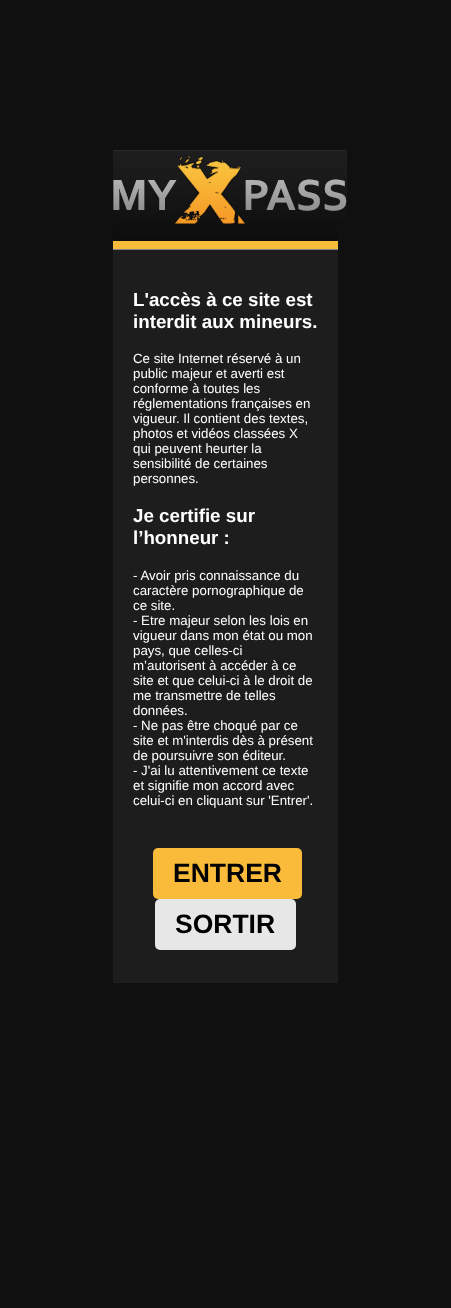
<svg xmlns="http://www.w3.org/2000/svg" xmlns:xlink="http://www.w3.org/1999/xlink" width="451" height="1308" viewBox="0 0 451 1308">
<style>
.cls-1{font:bold 18.75px Liberation Sans;fill:#ffffff}
.cls-2{font:13.3px Liberation Sans;fill:#ffffff}
.cls-3{font:bold 26.5px Liberation Sans;fill:#000000}
</style>
<rect width="100%" height="100%" fill="#101010"/>
<image xlink:href="image0.png" x="113" y="224" width="225" height="26"/>
<image xlink:href="image1.png" x="113" y="150" width="234" height="74"/>
<rect fill="#1d1d1d" x="113" y="250" width="225" height="733"/>
<rect fill="#f9bb39" x="153" y="848" width="149" height="51" rx="5"/>
<rect fill="#e7e7e7" x="155" y="899" width="141" height="51" rx="5"/>
<text class="cls-1"><tspan x="133" y="306">L'accès à ce site est</tspan><tspan x="133" y="328">interdit aux mineurs.</tspan></text>
<text class="cls-2"><tspan x="133" y="363">Ce site Internet réservé à un</tspan><tspan x="133" y="378">public majeur et averti est</tspan><tspan x="133" y="393">conforme à toutes les</tspan><tspan x="133" y="408">réglementations françaises en</tspan><tspan x="133" y="423">vigueur. Il contient des textes,</tspan><tspan x="133" y="438">photos et vidéos classées X</tspan><tspan x="133" y="453">qui peuvent heurter la</tspan><tspan x="133" y="468">sensibilité de certaines</tspan><tspan x="133" y="483">personnes.</tspan></text>
<text class="cls-1"><tspan x="133" y="522">Je certifie sur</tspan><tspan x="133" y="544">l’honneur :</tspan></text>
<text class="cls-2"><tspan x="133" y="580">- Avoir pris connaissance du</tspan><tspan x="133" y="595">caractère pornographique de</tspan><tspan x="133" y="610">ce site.</tspan><tspan x="133" y="625">- Etre majeur selon les lois en</tspan><tspan x="133" y="640">vigueur dans mon état ou mon</tspan><tspan x="133" y="655">pays, que celles-ci</tspan><tspan x="133" y="670">m’autorisent à accéder à ce</tspan><tspan x="133" y="685">site et que celui-ci à le droit de</tspan><tspan x="133" y="700">me transmettre de telles</tspan><tspan x="133" y="715">données.</tspan><tspan x="133" y="730">- Ne pas être choqué par ce</tspan><tspan x="133" y="745">site et m'interdis dès à présent</tspan><tspan x="133" y="760">de poursuivre son éditeur.</tspan><tspan x="133" y="775">- J'ai lu attentivement ce texte</tspan><tspan x="133" y="790">et signifie mon accord avec</tspan><tspan x="133" y="805">celui-ci en cliquant sur 'Entrer'.</tspan></text>
<text class="cls-3" x="173" y="882">ENTRER</text>
<text class="cls-3" x="175" y="933">SORTIR</text>
</svg>
